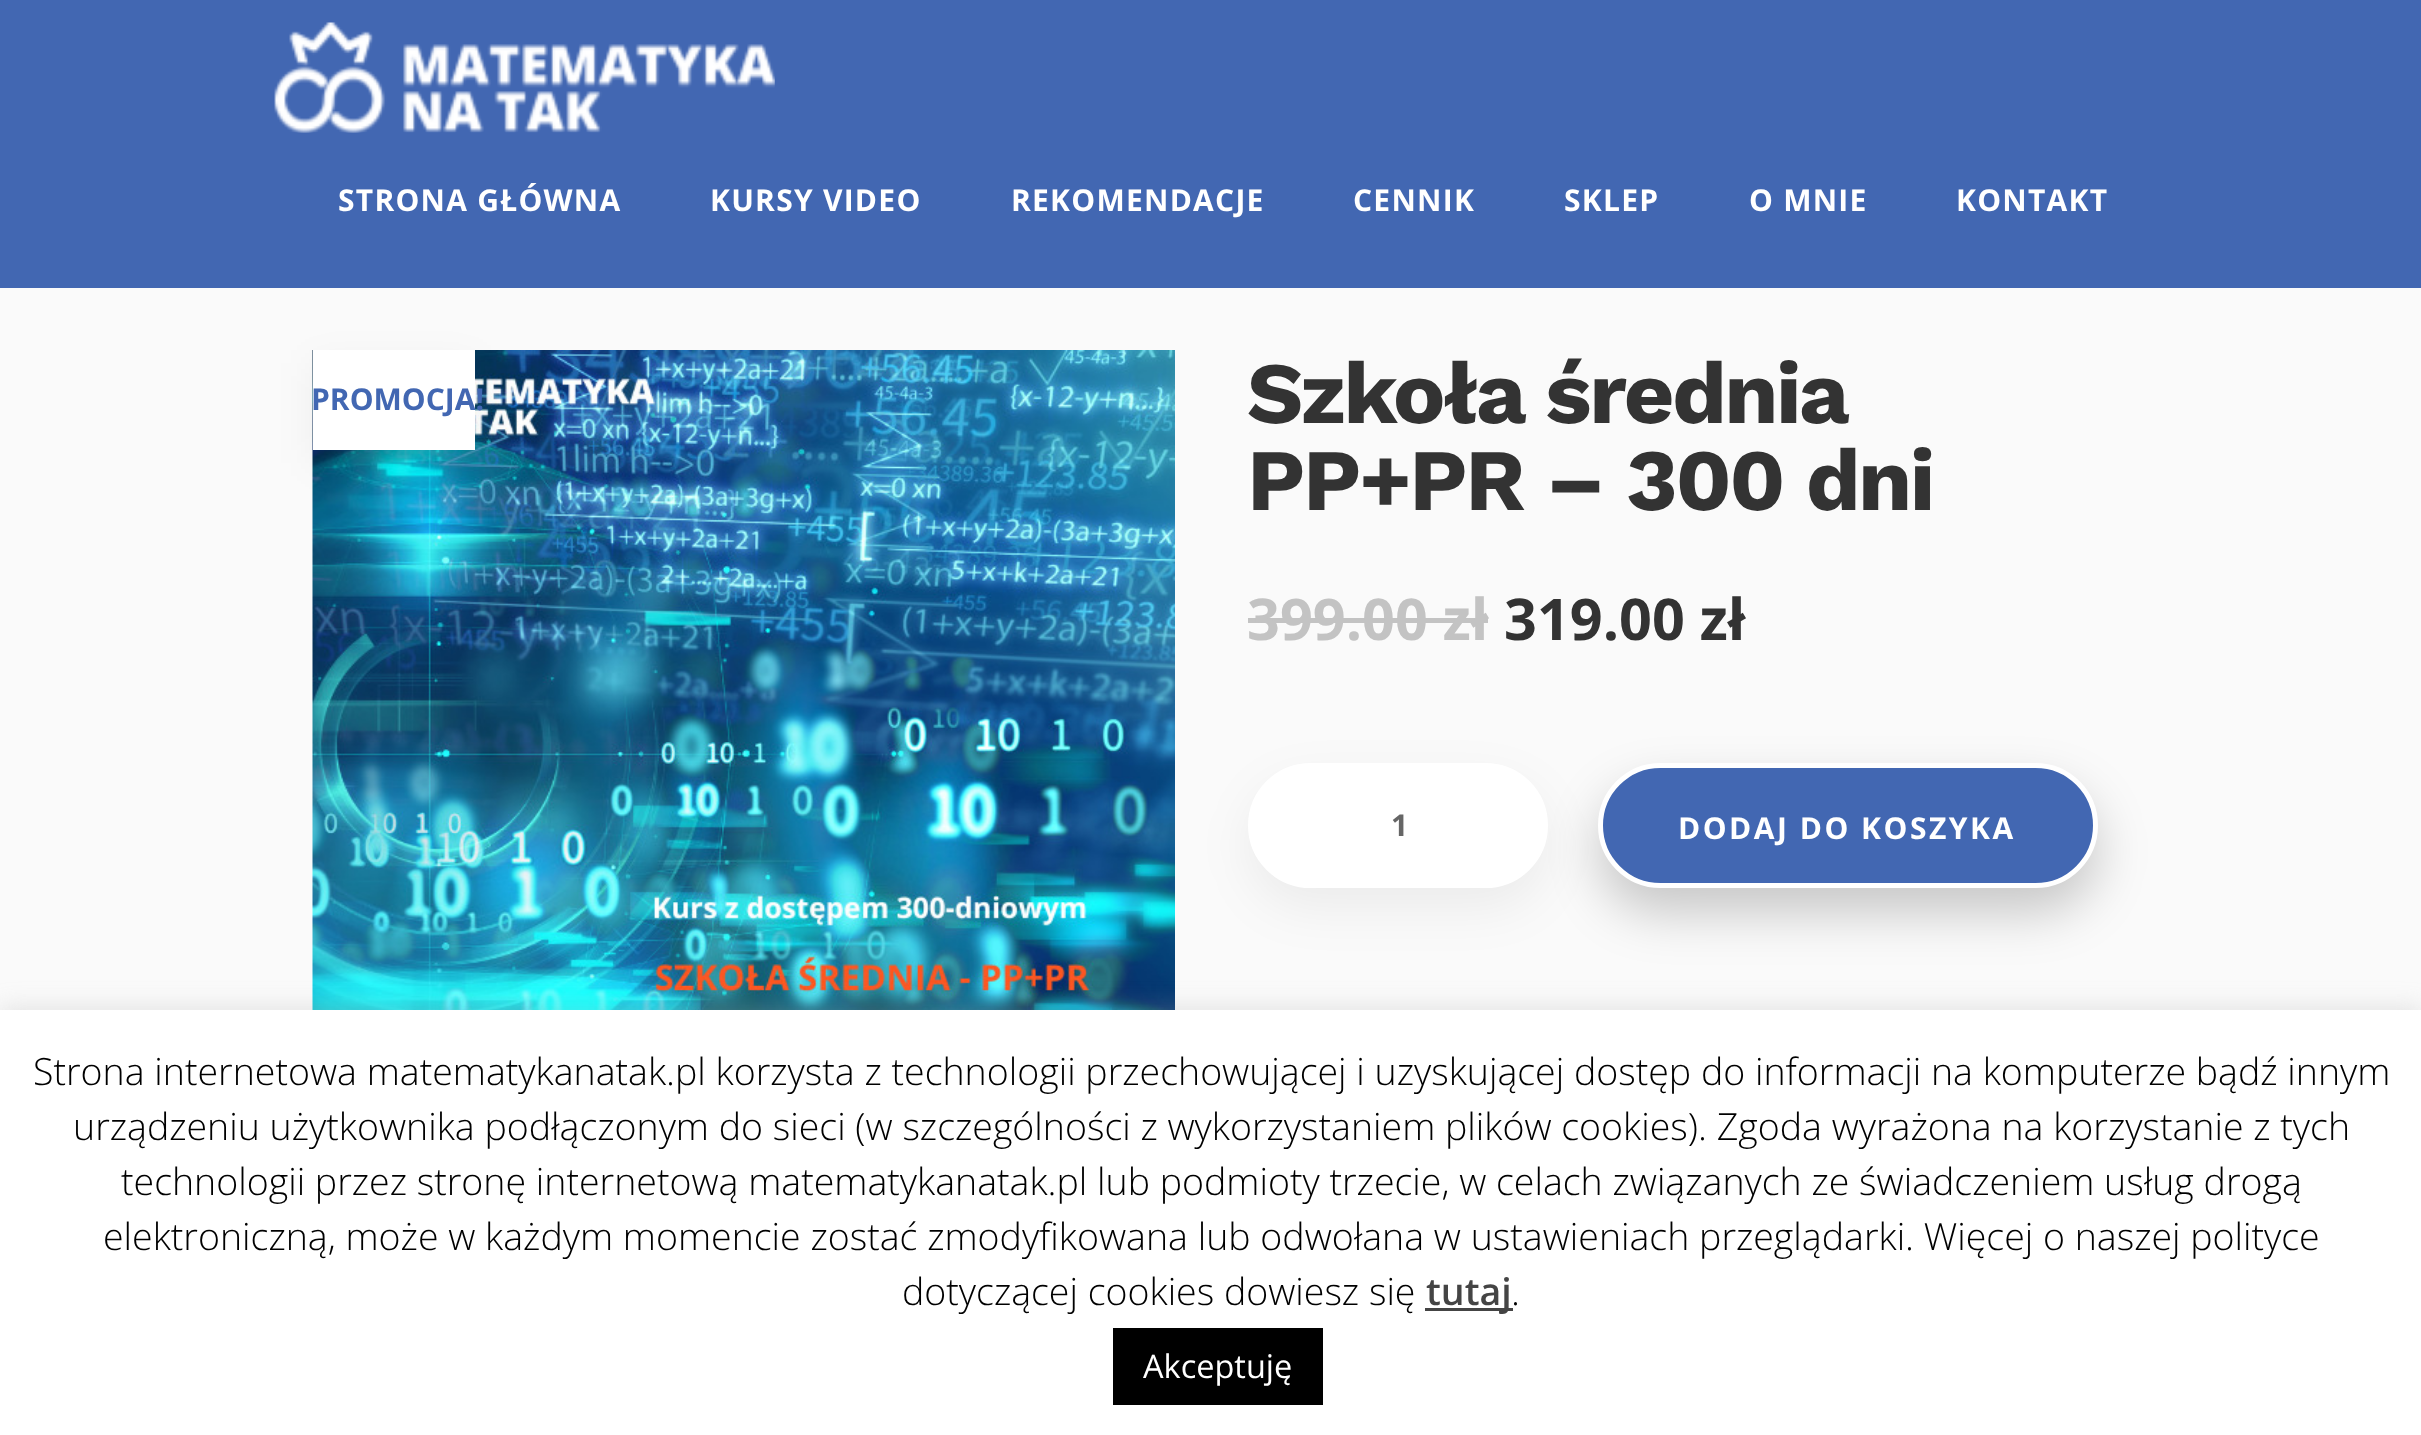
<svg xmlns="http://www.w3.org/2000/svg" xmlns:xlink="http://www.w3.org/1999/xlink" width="2421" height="1435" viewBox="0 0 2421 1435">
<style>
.cls-1{font:bold 30px Open Sans;letter-spacing:1.25px;fill:#ffffff}
.cls-2{font:bold 87.5px Work Sans;letter-spacing:-2.5px;fill:#333333}
.cls-3{font:bold 57.5px Open Sans;fill:#c3c3c3}
.cls-4{font:bold 57.5px Open Sans;fill:#333333}
.cls-5{font:bold 30px Open Sans;letter-spacing:2.5px;fill:#666666}
.cls-6{font:bold 30px Open Sans;letter-spacing:2.5px;fill:#ffffff}
.cls-7{font:bold 30px Open Sans;fill:#4267b2}
.cls-8{font:300 37.5px Open Sans;fill:#000000}
.cls-9{font:600 37.5px Open Sans;fill:#444444}
.cls-10{font:32.5px Open Sans;fill:#ffffff}
</style>
<rect width="100%" height="100%" fill="#fafafa"/>
<rect fill="#4267b2" x="0" y="0" width="2421" height="288"/>
<image xlink:href="image0.png" x="274" y="22" width="501" height="111"/>
<image xlink:href="image1.png" x="312" y="350" width="863" height="660"/>
<rect fill="#c3c3c3" x="1248" y="618" width="240" height="5"/>
<rect fill="#000000" fill-opacity="0.06" filter="blur(25px)" x="1248" y="783" width="300" height="125" rx="62.5"/>
<rect fill="#ffffff" stroke="#ffffff" stroke-width="5" x="1250.5" y="765.5" width="295" height="120" rx="60"/>
<rect fill="#000000" fill-opacity="0.2" filter="blur(25px)" x="1598" y="788" width="500" height="125" rx="62.5"/>
<rect fill="#4267b2" stroke="#ffffff" stroke-width="5" x="1600.5" y="765.5" width="495" height="120" rx="60"/>
<rect fill="#000000" fill-opacity="0.05" filter="blur(19px)" x="313" y="363" width="162" height="100"/>
<rect fill="#ffffff" x="313" y="350" width="162" height="100"/>
<rect fill="#acabab" fill-opacity="0.3" filter="blur(12.5px)" x="0" y="1008" width="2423" height="425"/>
<rect fill="#ffffff" x="0" y="1010" width="2421" height="425"/>
<rect fill="#444444" x="1425" y="1308" width="88" height="3"/>
<rect fill="#000000" x="1113" y="1328" width="210" height="77"/>
<text class="cls-1" x="338" y="211">STRONA GŁÓWNA</text>
<text class="cls-1" x="710" y="211">KURSY VIDEO</text>
<text class="cls-1" x="1011" y="211">REKOMENDACJE</text>
<text class="cls-1" x="1353" y="211">CENNIK</text>
<text class="cls-1" x="1564" y="211">SKLEP</text>
<text class="cls-1" x="1749" y="211">O MNIE</text>
<text class="cls-1" x="1956" y="211">KONTAKT</text>
<text class="cls-2"><tspan x="1247" y="423" word-spacing="-1">Szkoła średnia</tspan><tspan x="1247" y="510">PP+PR – 300 dni</tspan></text>
<text class="cls-3" x="1247" y="640">399.00 zł</text>
<text class="cls-4" x="1504" y="640">319.00 zł</text>
<text class="cls-5" x="1391" y="836">1</text>
<text class="cls-6" x="1678" y="839">DODAJ DO KOSZYKA</text>
<text class="cls-7" x="311" y="410">PROMOCJA!</text>
<text class="cls-8" x="33" y="1085">Strona internetowa matematykanatak.pl korzysta z technologii przechowującej i uzyskującej dostęp do informacji na komputerze bądź innym</text>
<text class="cls-8" x="73" y="1140">urządzeniu użytkownika podłączonym do sieci (w szczególności z wykorzystaniem plików cookies). Zgoda wyrażona na korzystanie z tych</text>
<text class="cls-8" x="121" y="1195">technologii przez stronę internetową matematykanatak.pl lub podmioty trzecie, w celach związanych ze świadczeniem usług drogą</text>
<text class="cls-8" x="103" y="1250">elektroniczną, może w każdym momencie zostać zmodyfikowana lub odwołana w ustawieniach przeglądarki. Więcej o naszej polityce</text>
<text class="cls-8" x="902" y="1305">dotyczącej cookies dowiesz się</text>
<text class="cls-9" x="1426" y="1305">tutaj</text>
<text class="cls-8" x="1511" y="1305">.</text>
<text class="cls-10" x="1143" y="1378">Akceptuję</text>
</svg>
